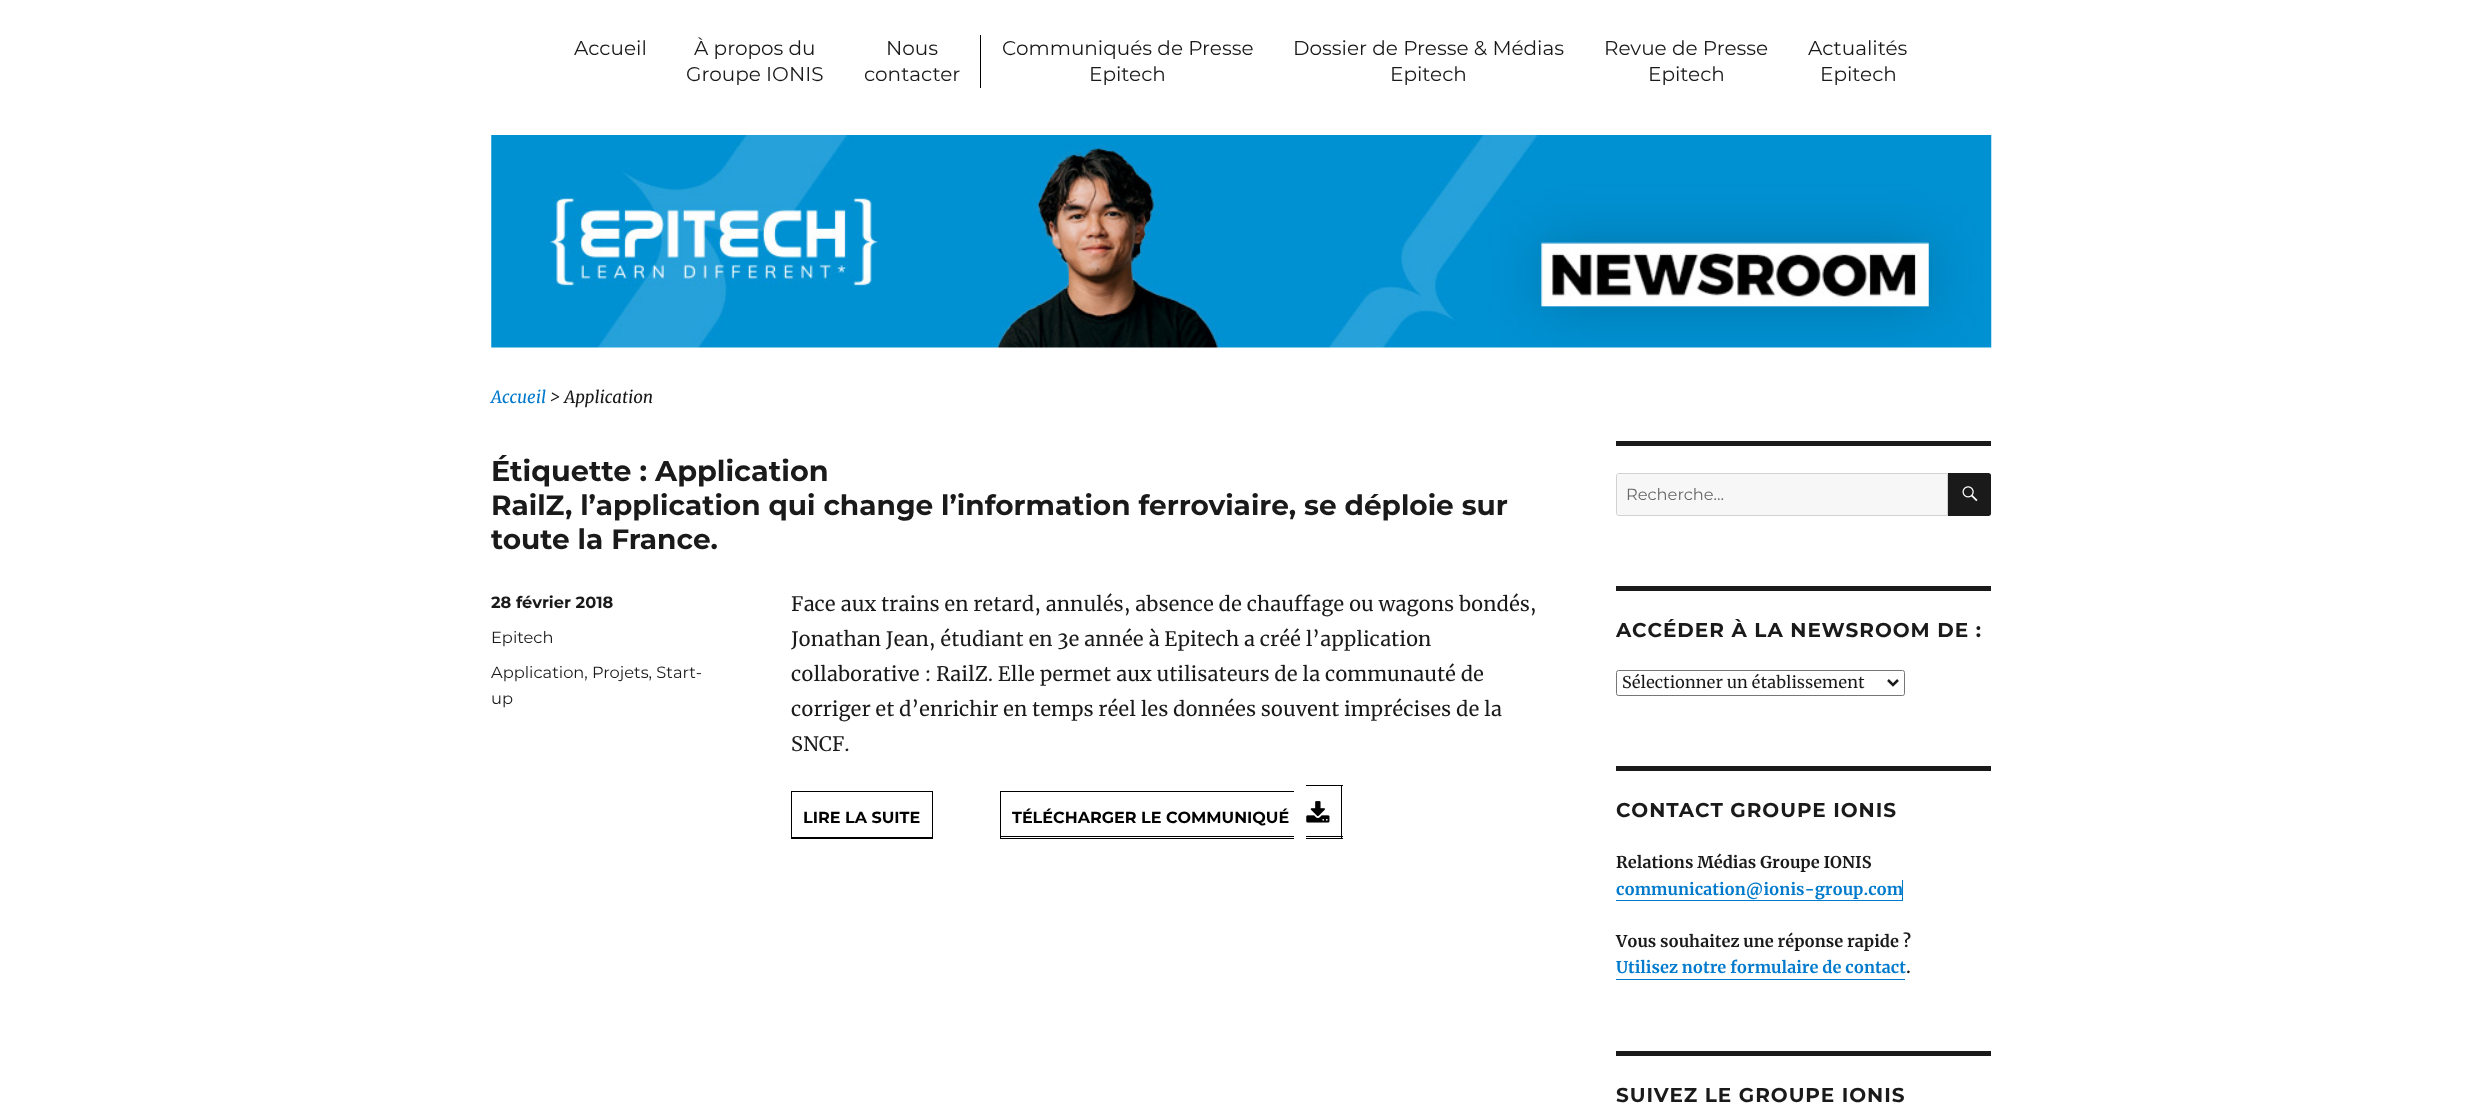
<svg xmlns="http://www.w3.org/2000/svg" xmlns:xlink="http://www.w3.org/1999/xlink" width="2481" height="1118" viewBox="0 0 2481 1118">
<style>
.cls-1{font:100 20px 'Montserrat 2';fill:#1a1a1a}
.cls-2{font:italic 16.75px Merriweather;fill:#007acc}
.cls-3{font:italic 16.75px Merriweather;fill:#1a1a1a}
.cls-4{font:100 28.75px Montserrat;fill:#1a1a1a}
.cls-5{font:100 28px Montserrat;fill:#1a1a1a}
.cls-6{font:100 16.25px Montserrat;fill:#1a1a1a}
.cls-7{font:100 16.25px 'Montserrat 2';fill:#1a1a1a}
.cls-8{font:20px Merriweather;fill:#1a1a1a}
.cls-9{font:100 16px Montserrat;fill:#000000}
.cls-10{font:100 16.25px 'Montserrat 2';fill:#686868}
.cls-11{font:100 20px Montserrat;letter-spacing:0.95px;fill:#1a1a1a}
.cls-12{font:16.25px Merriweather;fill:#1a1a1a}
.cls-13{font:bold 16.25px Merriweather;fill:#1a1a1a}
.cls-14{font:bold 16.25px Merriweather;fill:#007acc}
</style>
<rect width="100%" height="100%" fill="#ffffff"/>
<rect fill="#000000" x="980" y="35" width="1" height="53"/>
<image xlink:href="image0.png" x="491" y="135" width="1501" height="213"/>
<path fill="#000000" d="M791 793V839H933V793H932V838H791Z"/>
<rect fill="none" stroke="#000000" x="791.5" y="791.5" width="141" height="46"/>
<path fill="#000000" d="M1000 838V839H1294V793V838Z"/>
<rect fill="#000000" x="1000" y="791" width="294" height="1"/>
<rect fill="#000000" x="1000" y="836" width="294" height="1"/>
<rect fill="#000000" x="1000" y="791" width="1" height="47"/>
<path fill="#000000" d="M1306 786V839H1343V786H1342V838H1306Z"/>
<rect fill="#ffffff" x="1342" y="786" width="1" height="52"/>
<rect fill="#000000" x="1306" y="785" width="37" height="1"/>
<rect fill="#000000" x="1341" y="785" width="1" height="53"/>
<rect fill="#000000" x="1306" y="836" width="37" height="1"/>
<image xlink:href="image1.png" x="1306" y="801" width="24" height="22"/>
<rect fill="#1a1a1a" x="1616" y="441" width="375" height="5"/>
<path fill="#f7f7f7" stroke="#d1d1d1" d="M1618.5 473.5H1947.5V515.5H1618.5C1617.5 515.5 1616.5 514.5 1616.5 513.5V475.5C1616.5 474.5 1617.5 473.5 1618.5 473.5Z"/>
<path fill="#1a1a1a" d="M1948 473H1988.5C1990 473 1991 474 1991 475.5V513.5C1991 515 1990 516 1988.5 516H1948Z"/>
<image xlink:href="image2.png" x="1962" y="486" width="16" height="16"/>
<rect fill="#1a1a1a" x="1616" y="586" width="375" height="5"/>
<rect fill="none" stroke="#767676" x="1616.5" y="670.5" width="288" height="25" rx="2"/>
<path fill="none" stroke="#1a1a1a" stroke-width="2.5" d="M1888 680L1893 685L1898 680"/>
<rect fill="#1a1a1a" x="1616" y="766" width="375" height="5"/>
<path fill="#007acc" d="M1616 880V901H1903V880H1902V900H1616Z"/>
<path fill="#007acc" d="M1616 959V980H1905V979H1616Z"/>
<rect fill="#1a1a1a" x="1616" y="1051" width="375" height="5"/>
<text class="cls-1" x="574" y="55">Accueil</text>
<text class="cls-1" x="694" y="55">À propos du</text>
<text class="cls-1" x="686" y="81">Groupe IONIS</text>
<text class="cls-1" x="886" y="55">Nous</text>
<text class="cls-1" x="864" y="81">contacter</text>
<text class="cls-1" x="1002" y="55">Communiqués de Presse</text>
<text class="cls-1" x="1089" y="81">Epitech</text>
<text class="cls-1" x="1293" y="55">Dossier de Presse &amp; Médias</text>
<text class="cls-1" x="1390" y="81">Epitech</text>
<text class="cls-1" x="1604" y="55">Revue de Presse</text>
<text class="cls-1" x="1648" y="81">Epitech</text>
<text class="cls-1" x="1808" y="55">Actualités</text>
<text class="cls-1" x="1820" y="81">Epitech</text>
<text class="cls-2" x="491" y="403">Accueil</text>
<text class="cls-3" x="549" y="403">&gt; Application</text>
<text class="cls-4" x="491" y="481">Étiquette : Application</text>
<text class="cls-5"><tspan x="491" y="515">RailZ, l’application qui change l’information ferroviaire, se déploie sur</tspan><tspan x="491" y="549">toute la France.</tspan></text>
<text class="cls-6" x="491" y="608">28 février 2018</text>
<text class="cls-7" x="491" y="643">Epitech</text>
<text class="cls-7"><tspan x="491" y="678">Application, Projets, Start-</tspan><tspan x="491" y="704">up</tspan></text>
<text class="cls-8"><tspan x="791" y="611">Face aux trains en retard, annulés, absence de chauffage ou wagons bondés,</tspan><tspan x="791" y="646">Jonathan Jean, étudiant en 3e année à Epitech a créé l’application</tspan><tspan x="791" y="681">collaborative : RailZ. Elle permet aux utilisateurs de la communauté de</tspan><tspan x="791" y="716">corriger et d’enrichir en temps réel les données souvent imprécises de la</tspan><tspan x="791" y="751">SNCF.</tspan></text>
<text class="cls-9" x="803" y="823">LIRE LA SUITE</text>
<text class="cls-9" x="1012" y="823">TÉLÉCHARGER LE COMMUNIQUÉ</text>
<text class="cls-10" x="1626" y="500">Recherche…</text>
<text class="cls-11" x="1616" y="637">ACCÉDER À LA NEWSROOM DE :</text>
<text class="cls-12" x="1622" y="688">Sélectionner un établissement</text>
<text class="cls-11" x="1616" y="817">CONTACT GROUPE IONIS</text>
<text class="cls-13" x="1616" y="868">Relations Médias Groupe IONIS</text>
<text class="cls-14" x="1616" y="895">communication@ionis-group.com</text>
<text class="cls-13" x="1616" y="947">Vous souhaitez une réponse rapide ?</text>
<text class="cls-14" x="1616" y="973">Utilisez notre formulaire de contact</text>
<text class="cls-13" x="1906" y="973">.</text>
<text class="cls-11" x="1616" y="1102">SUIVEZ LE GROUPE IONIS</text>
</svg>
